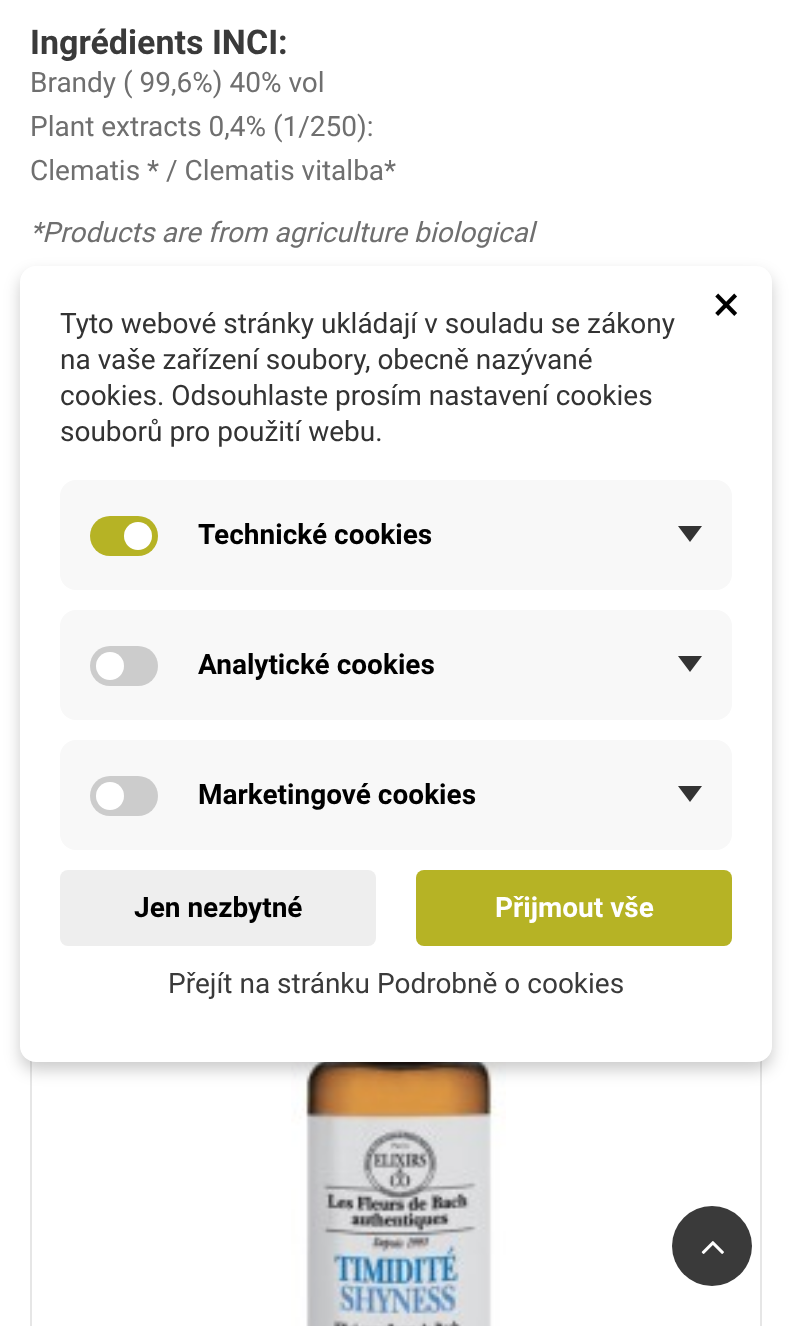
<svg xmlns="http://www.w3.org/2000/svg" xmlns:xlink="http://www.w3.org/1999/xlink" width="792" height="1326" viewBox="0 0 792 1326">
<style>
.cls-1{font:bold 34px Roboto;fill:#3a3a3a}
.cls-2{font:28px Roboto;fill:#6f6f6f}
.cls-3{font:italic 28px Roboto;fill:#6f6f6f}
.cls-4{font:50px Roboto;fill:#000000}
.cls-5{font:28px Roboto;fill:#333333}
.cls-6{font:bold 28px Roboto;fill:#000000}
.cls-7{font:bold 28px Roboto;fill:#ffffff}
.cls-8{font:28px Roboto;fill:#3a3a3a}
</style>
<rect width="100%" height="100%" fill="#ffffff"/>
<rect fill="none" stroke="#e6e6e6" stroke-width="2" x="31" y="627" width="730" height="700"/>
<image xlink:href="image0.png" x="291" y="1062" width="215" height="264"/>
<rect fill="#000000" fill-opacity="0.2" filter="blur(8px)" x="20" y="274" width="752" height="796" rx="16"/>
<rect fill="#ffffff" x="20" y="266" width="752" height="796" rx="16"/>
<rect fill="#f8f8f8" x="60" y="480" width="672" height="110" rx="16"/>
<rect fill="#b6b325" x="90" y="516" width="68" height="40" rx="20"/>
<circle fill="#ffffff" cx="138" cy="536" r="14"/>
<path fill="#333333" d="M678 526H702L690 542Z"/>
<rect fill="#f8f8f8" x="60" y="610" width="672" height="110" rx="16"/>
<rect fill="#cccccc" x="90" y="646" width="68" height="40" rx="20"/>
<circle fill="#ffffff" cx="110" cy="666" r="14"/>
<path fill="#333333" d="M678 656H702L690 672Z"/>
<rect fill="#f8f8f8" x="60" y="740" width="672" height="110" rx="16"/>
<rect fill="#cccccc" x="90" y="776" width="68" height="40" rx="20"/>
<circle fill="#ffffff" cx="110" cy="796" r="14"/>
<path fill="#333333" d="M678 786H702L690 802Z"/>
<rect fill="#eeeeee" x="60" y="870" width="316" height="76" rx="8"/>
<rect fill="#b6b325" x="416" y="870" width="316" height="76" rx="8"/>
<circle fill="#3a3a3a" cx="712" cy="1246" r="40"/>
<image xlink:href="image1.png" x="701" y="1241" width="23" height="13"/>
<text class="cls-1" x="30" y="54">Ingrédients INCI:</text>
<text class="cls-2"><tspan x="30" y="92">Brandy ( 99,6%) 40% vol</tspan><tspan x="30" y="136">Plant extracts 0,4% (1/250):</tspan><tspan x="30" y="180">Clematis * / Clematis vitalba*</tspan></text>
<text class="cls-3" x="30" y="242">*Products are from agriculture biological</text>
<text class="cls-4" x="713" y="321">×</text>
<text class="cls-5"><tspan x="60" y="333">Tyto webové stránky ukládají v souladu se zákony</tspan><tspan x="60" y="369">na vaše zařízení soubory, obecně nazývané</tspan><tspan x="60" y="405">cookies. Odsouhlaste prosím nastavení cookies</tspan><tspan x="60" y="441">souborů pro použití webu.</tspan></text>
<text class="cls-6" x="198" y="544">Technické cookies</text>
<text class="cls-6" x="198" y="674">Analytické cookies</text>
<text class="cls-6" x="198" y="804">Marketingové cookies</text>
<text class="cls-6" x="134" y="917">Jen nezbytné</text>
<text class="cls-7" x="495" y="917">Přijmout vše</text>
<text class="cls-8" x="168" y="993">Přejít na stránku Podrobně o cookies</text>
</svg>
